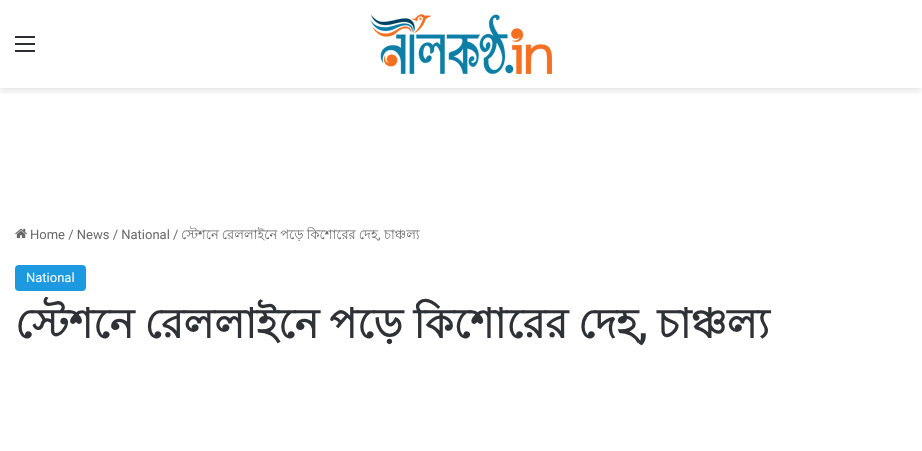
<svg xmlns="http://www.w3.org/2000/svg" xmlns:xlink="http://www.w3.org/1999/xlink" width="922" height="451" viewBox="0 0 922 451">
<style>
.cls-1{font:13px Roboto;fill:#686868}
.cls-2{font:13px Lohit Bengali;fill:#686868}
.cls-3{font:13px Roboto;fill:#ffffff}
.cls-4{font:bold 41px Lohit Bengali;fill:#2e3136}
.cls-5{font:bold 41px Roboto;fill:#2e3136}
</style>
<defs>
<clipPath id="clip1"><rect x="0" y="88" width="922" height="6"/></clipPath>
</defs>
<rect width="100%" height="100%" fill="#ffffff"/>
<g clip-path="url(#clip1)">
<rect fill="#000000" fill-opacity="0.1" filter="blur(3.5px)" x="0" y="3" width="922" height="88"/>
</g>
<rect fill="#2c2f34" x="15" y="43" width="20" height="2"/>
<rect fill="#2c2f34" x="15" y="36" width="20" height="2"/>
<rect fill="#2c2f34" x="15" y="50" width="20" height="2"/>
<image xlink:href="image0.png" x="370" y="14" width="182" height="60"/>
<image xlink:href="image1.png" x="15" y="228" width="12" height="11"/>
<rect fill="#1d99e0" x="15" y="265" width="71" height="26" rx="4"/>
<text class="cls-1" x="30" y="239">Home / News / National /</text>
<text class="cls-2" x="181" y="239" word-spacing="-0.5">স্টেশনে রেললাইনে পড়ে কিশোরের দেহ</text>
<text class="cls-1" x="378" y="239">,</text>
<text class="cls-2" x="384" y="239">চাঞ্চল্য</text>
<text class="cls-3" x="26" y="282">National</text>
<text class="cls-4" x="15" y="338" word-spacing="-1">স্টেশনে রেললাইনে পড়ে কিশোরের দেহ</text>
<text class="cls-5" x="638" y="338">,</text>
<text class="cls-4" x="657" y="338">চাঞ্চল্য</text>
</svg>
